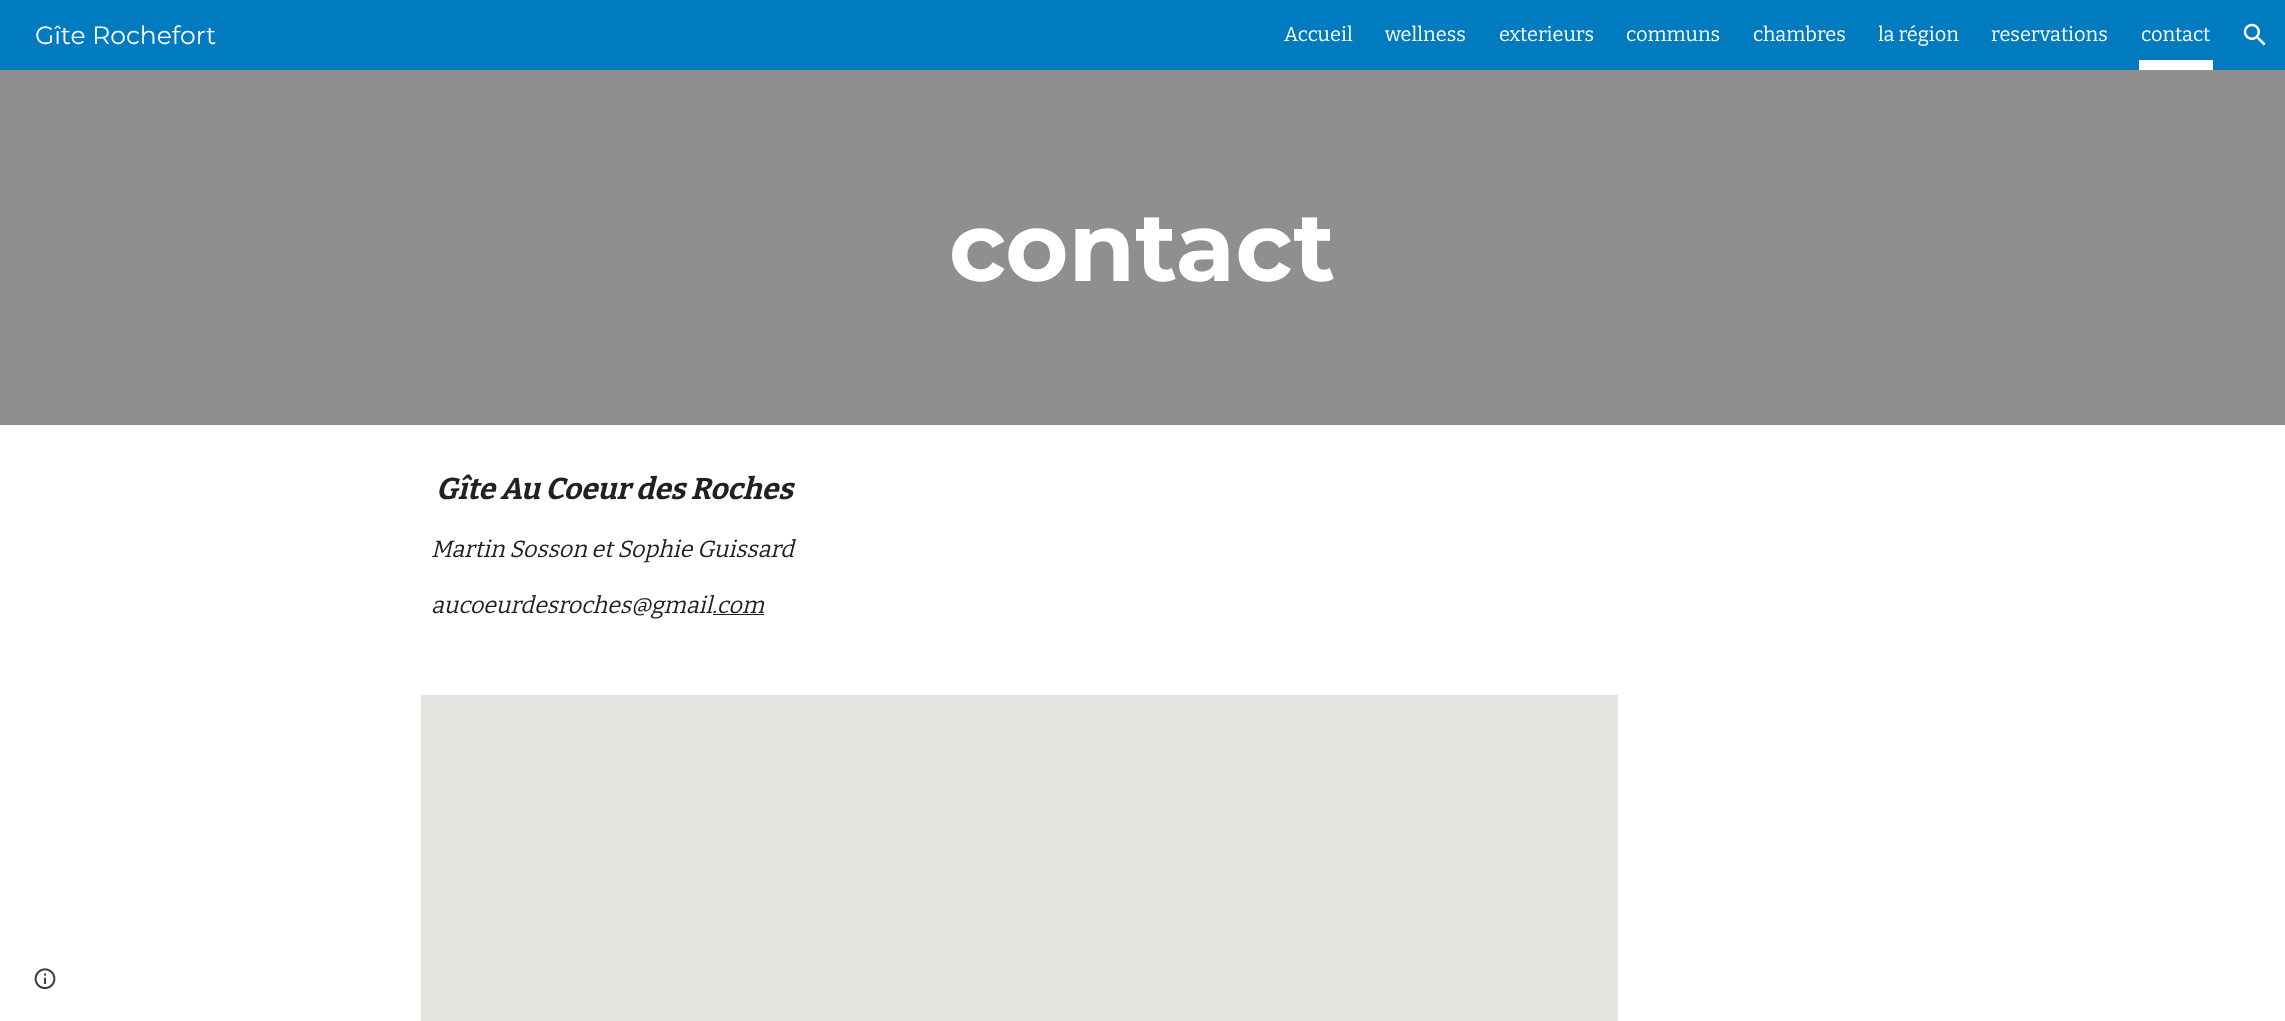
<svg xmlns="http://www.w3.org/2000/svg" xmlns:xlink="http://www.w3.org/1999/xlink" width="2285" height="1021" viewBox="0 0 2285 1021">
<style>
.cls-1{font:25px Montserrat;fill:#ffffff}
.cls-2{font:20px Bitter;fill:#ffffff}
.cls-3{font:bold 96.5px Montserrat;fill:#ffffff}
.cls-4{font:italic bold 30px Bitter;fill:#212121}
.cls-5{font:italic 23.3px Bitter;fill:#212121}
</style>
<defs>
<clipPath id="clip1"><rect x="1879" y="18" width="80" height="35"/></clipPath>
</defs>
<rect width="100%" height="100%" fill="#ffffff"/>
<rect fill="#007bbf" x="0" y="0" width="2285" height="70"/>
<rect fill="#ffffff" x="2139" y="60" width="74" height="10"/>
<image xlink:href="image0.png" x="2243" y="23" width="23" height="23"/>
<rect fill="#8f8f8f" x="0" y="70" width="2285" height="355"/>
<rect fill="#212121" x="713" y="614" width="51" height="1"/>
<rect fill="#e5e3df" x="421" y="695" width="1197" height="326"/>
<image xlink:href="image1.png" x="34" y="968" width="22" height="22"/>
<text class="cls-1" x="35" y="44">Gîte Rochefort</text>
<text class="cls-2" x="1284" y="41">Accueil</text>
<text class="cls-2" x="1385" y="41">wellness</text>
<text class="cls-2" x="1499" y="41">exterieurs</text>
<text class="cls-2" x="1626" y="41">communs</text>
<text class="cls-2" x="1753" y="41">chambres</text>
<g clip-path="url(#clip1)">
<text class="cls-2" x="1878" y="41">la région</text>
</g>
<text class="cls-2" x="1991" y="41">reservations</text>
<text class="cls-2" x="2141" y="41">contact</text>
<text class="cls-3" x="949" y="281">contact</text>
<text class="cls-4" x="436" y="499">Gîte Au Coeur des Roches</text>
<text class="cls-5" x="431" y="557">Martin Sosson et Sophie Guissard</text>
<text class="cls-5" x="431" y="613">aucoeurdesroches@gmail.com</text>
</svg>
